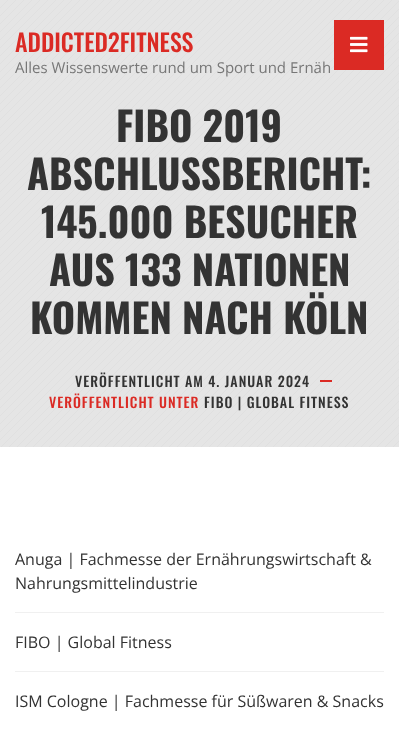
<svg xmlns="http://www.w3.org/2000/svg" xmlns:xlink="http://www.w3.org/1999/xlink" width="399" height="729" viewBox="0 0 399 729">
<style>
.cls-1{font:500 24px Oswald;fill:#db2a24}
.cls-2{font:15px Open Sans;fill:#777777}
.cls-3{font:bold 40px Oswald;fill:#333333}
.cls-4{font:500 14px Oswald;letter-spacing:1px;fill:#333333}
.cls-5{font:500 14px Oswald;letter-spacing:1px;fill:#db2a24}
.cls-6{font:16px Open Sans;fill:#333333}
</style>
<rect width="100%" height="100%" fill="#ffffff"/>
<image xlink:href="image1.png" x="0" y="0" width="399" height="447"/>
<rect fill="#db2a24" x="334" y="20" width="50" height="50"/>
<image xlink:href="image0.png" x="350" y="36" width="18" height="17"/>
<rect fill="#db2a24" x="320" y="380" width="12" height="2"/>
<rect fill="#f0f0f0" x="15" y="612" width="369" height="1"/>
<rect fill="#f0f0f0" x="15" y="671" width="369" height="1"/>
<text class="cls-1" x="15" y="52">ADDICTED2FITNESS</text>
<text class="cls-2" x="15" y="73">Alles Wissenswerte rund um Sport und Ernäh</text>
<text class="cls-3" x="116" y="142">FIBO 2019</text>
<text class="cls-3" x="27" y="190">ABSCHLUSSBERICHT:</text>
<text class="cls-3" x="41" y="238">145.000 BESUCHER</text>
<text class="cls-3" x="49" y="286">AUS 133 NATIONEN</text>
<text class="cls-3" x="30" y="334">KOMMEN NACH KÖLN</text>
<text class="cls-4" x="75" y="387">VERÖFFENTLICHT AM 4. JANUAR 2024</text>
<text class="cls-5" x="49" y="408">VERÖFFENTLICHT UNTER</text>
<text class="cls-4" x="204" y="408">FIBO | GLOBAL FITNESS</text>
<text class="cls-6"><tspan x="15" y="565">Anuga | Fachmesse der Ernährungswirtschaft &amp;</tspan><tspan x="15" y="589">Nahrungsmittelindustrie</tspan></text>
<text class="cls-6" x="15" y="648">FIBO | Global Fitness</text>
<text class="cls-6" x="15" y="707">ISM Cologne | Fachmesse für Süßwaren &amp; Snacks</text>
</svg>
